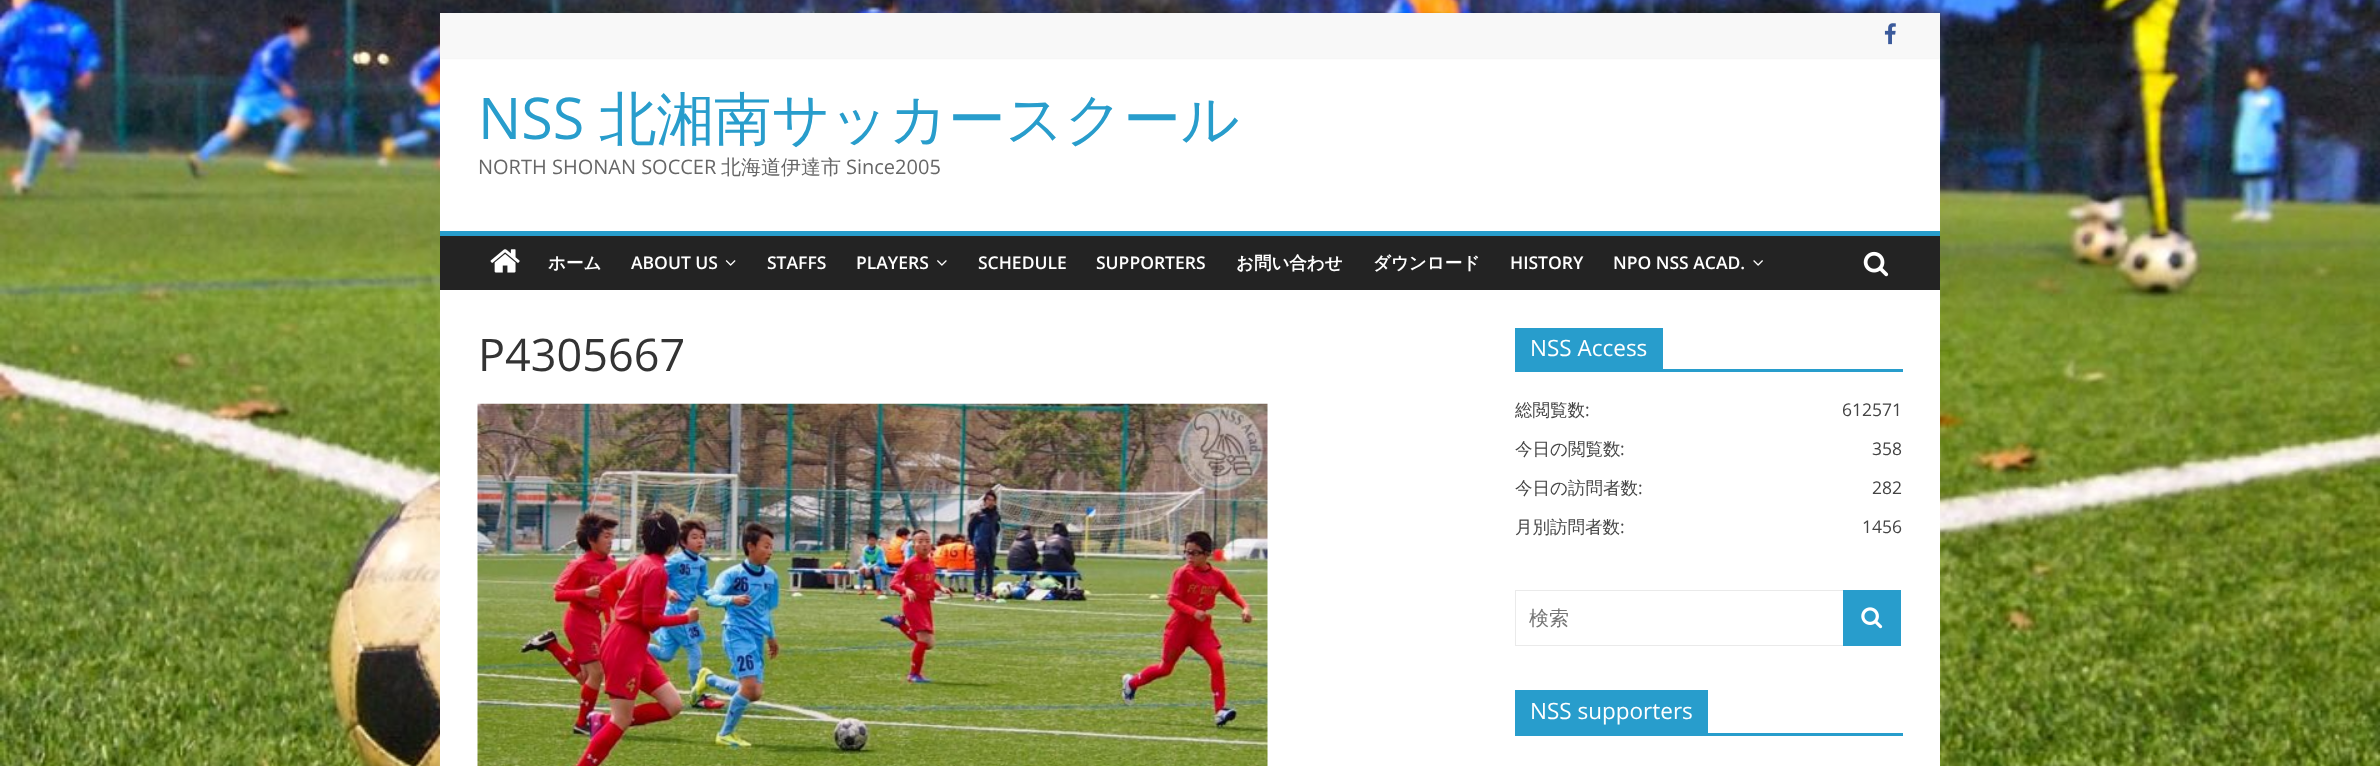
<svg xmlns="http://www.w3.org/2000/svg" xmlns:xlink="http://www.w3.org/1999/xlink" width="2380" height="766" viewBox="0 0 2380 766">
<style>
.cls-1{font:57.5px Open Sans;fill:#289dcc}
.cls-2{font:500 57.5px WenQuanYi Zen Hei;fill:#289dcc}
.cls-3{font:20px Open Sans;fill:#666666}
.cls-4{font:500 20px WenQuanYi Zen Hei;fill:#666666}
.cls-5{font:bold 17.5px WenQuanYi Zen Hei;fill:#ffffff}
.cls-6{font:600 17.5px Open Sans;fill:#ffffff}
.cls-7{font:45px Open Sans;fill:#333333}
.cls-8{font:22.5px Open Sans;fill:#ffffff}
.cls-9{font:500 17.5px WenQuanYi Zen Hei;fill:#444444}
.cls-10{font:17.5px Open Sans;fill:#444444}
.cls-11{font:500 20px WenQuanYi Zen Hei;fill:#757575}
</style>
<rect width="100%" height="100%" fill="#ffffff"/>
<image xlink:href="image0.png" x="0" y="0" width="2380" height="766"/>
<rect fill="#ffffff" x="440" y="58" width="1500" height="173"/>
<rect fill="#000000" fill-opacity="0.1" filter="blur(1px)" x="440" y="13" width="1500" height="45"/>
<rect fill="#f8f8f8" x="440" y="13" width="1500" height="45"/>
<image xlink:href="image1.png" x="1884" y="23" width="12" height="22"/>
<rect fill="#232323" x="440" y="236" width="1500" height="54"/>
<rect fill="#289dcc" x="440" y="231" width="1500" height="5"/>
<image xlink:href="image2.png" x="490" y="249" width="30" height="24"/>
<image xlink:href="image3.png" x="725" y="260" width="11" height="6"/>
<image xlink:href="image4.png" x="937" y="260" width="10" height="6"/>
<image xlink:href="image5.png" x="1753" y="260" width="10" height="6"/>
<image xlink:href="image6.png" x="1863" y="251" width="26" height="26"/>
<rect fill="#ffffff" x="440" y="290" width="1500" height="476"/>
<image xlink:href="image7.png" x="477" y="403" width="791" height="363"/>
<rect fill="#289dcc" x="1515" y="369" width="388" height="3"/>
<rect fill="#289dcc" x="1515" y="328" width="148" height="41"/>
<rect fill="none" stroke="#eaeaea" x="1515.5" y="590.5" width="329" height="55"/>
<rect fill="#289dcc" x="1843" y="590" width="58" height="56"/>
<image xlink:href="image8.png" x="1861" y="607" width="22" height="22"/>
<rect fill="#289dcc" x="1515" y="733" width="388" height="3"/>
<rect fill="#289dcc" x="1515" y="690" width="193" height="43"/>
<text class="cls-1" x="478" y="139">NSS</text>
<text class="cls-2" x="599" y="139">北湘南サッカースクール</text>
<text class="cls-3" x="478" y="174">NORTH SHONAN SOCCER</text>
<text class="cls-4" x="721" y="174">北海道伊達市</text>
<text class="cls-3" x="846" y="174">Since2005</text>
<text class="cls-5" x="548" y="269">ホーム</text>
<text class="cls-6" x="631" y="269">ABOUT US</text>
<text class="cls-6" x="767" y="269">STAFFS</text>
<text class="cls-6" x="856" y="269">PLAYERS</text>
<text class="cls-6" x="978" y="269">SCHEDULE</text>
<text class="cls-6" x="1096" y="269">SUPPORTERS</text>
<text class="cls-5" x="1236" y="269">お問い合わせ</text>
<text class="cls-5" x="1373" y="269">ダウンロード</text>
<text class="cls-6" x="1510" y="269">HISTORY</text>
<text class="cls-6" x="1613" y="269">NPO NSS ACAD.</text>
<text class="cls-7" x="478" y="371">P4305667</text>
<text class="cls-8" x="1530" y="356">NSS Access</text>
<text class="cls-9" x="1515" y="416">総閲覧数</text>
<text class="cls-10" x="1585" y="416">:</text>
<text class="cls-10" x="1842" y="416">612571</text>
<text class="cls-9" x="1515" y="455">今日の閲覧数</text>
<text class="cls-10" x="1620" y="455">:</text>
<text class="cls-10" x="1872" y="455">358</text>
<text class="cls-9" x="1515" y="494">今日の訪問者数</text>
<text class="cls-10" x="1638" y="494">:</text>
<text class="cls-10" x="1872" y="494">282</text>
<text class="cls-9" x="1515" y="533">月別訪問者数</text>
<text class="cls-10" x="1620" y="533">:</text>
<text class="cls-10" x="1862" y="533">1456</text>
<text class="cls-11" x="1529" y="625">検索</text>
<text class="cls-8" x="1530" y="719">NSS supporters</text>
</svg>
